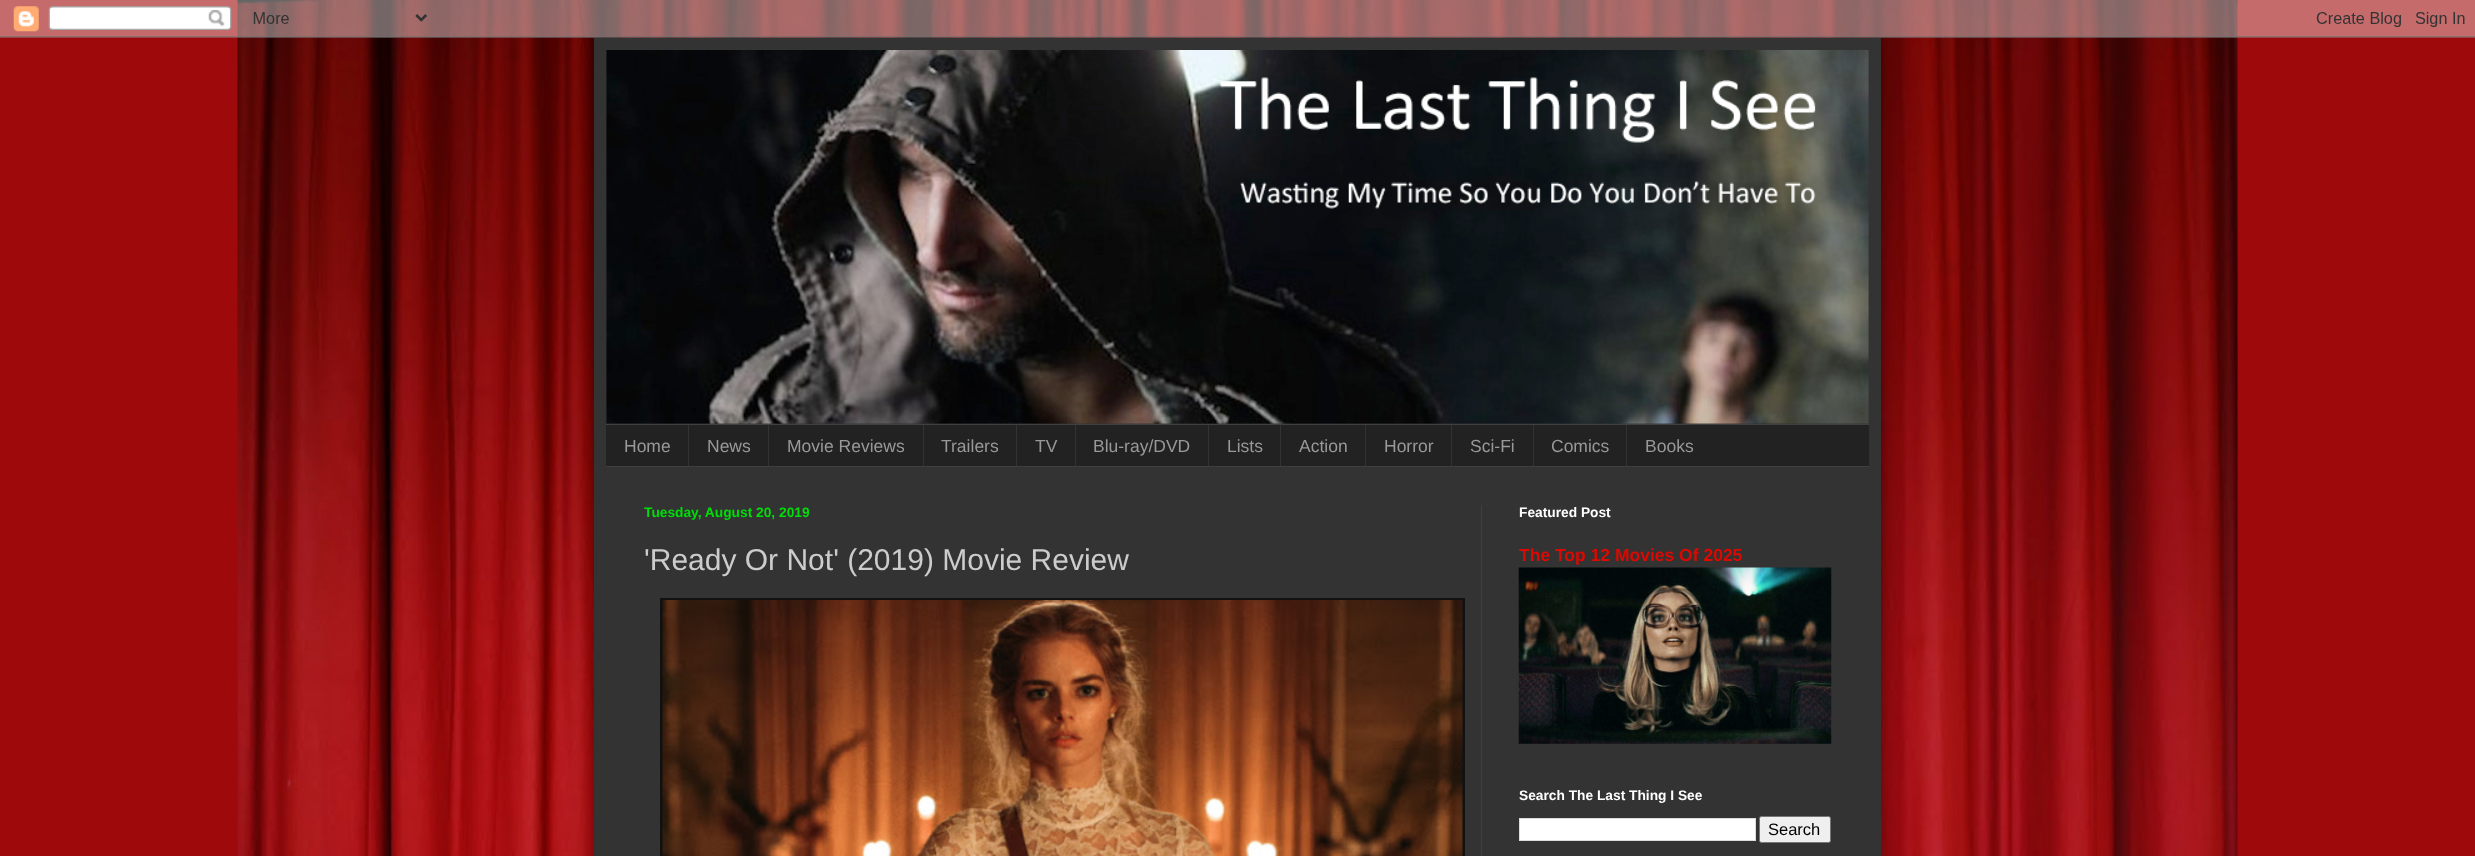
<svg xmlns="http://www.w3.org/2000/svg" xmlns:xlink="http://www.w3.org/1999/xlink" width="2475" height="856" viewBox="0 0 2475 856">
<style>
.cls-1{font:17.5px Liberation Sans;fill:#999999}
.cls-2{font:bold 13.75px Liberation Sans;fill:#00dd08}
.cls-3{font:30px Liberation Sans;fill:#cccccc}
.cls-4{font:bold 13.75px Liberation Sans;fill:#ffffff}
.cls-5{font:bold 17.5px Liberation Sans;fill:#dd0800}
.cls-6{font:16.5px Liberation Sans;fill:#000000}
</style>
<rect width="100%" height="100%" fill="#9e090b"/>
<image xlink:href="image0.png" x="237" y="0" width="2001" height="856"/>
<rect fill="#000000" fill-opacity="0.15" filter="blur(25px)" x="594" y="38" width="1287" height="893"/>
<image xlink:href="image1.png" x="0" y="0" width="2475" height="38"/>
<rect fill="#333333" x="594" y="38" width="1287" height="818"/>
<image xlink:href="image2.png" x="606" y="50" width="1263" height="374"/>
<rect fill="#222222" x="606" y="425" width="1263" height="41"/>
<rect fill="#404040" x="606" y="424" width="1263" height="1"/>
<rect fill="#404040" x="606" y="466" width="1263" height="1"/>
<rect fill="#333333" x="688" y="425" width="1" height="41"/>
<rect fill="#333333" x="768" y="425" width="1" height="41"/>
<rect fill="#333333" x="923" y="425" width="1" height="41"/>
<rect fill="#333333" x="1016" y="425" width="1" height="41"/>
<rect fill="#333333" x="1075" y="425" width="1" height="41"/>
<rect fill="#333333" x="1208" y="425" width="1" height="41"/>
<rect fill="#333333" x="1280" y="425" width="1" height="41"/>
<rect fill="#333333" x="1365" y="425" width="1" height="41"/>
<rect fill="#333333" x="1451" y="425" width="1" height="41"/>
<rect fill="#333333" x="1533" y="425" width="1" height="41"/>
<rect fill="#333333" x="1626" y="425" width="1" height="41"/>
<rect fill="#404040" x="1481" y="505" width="1" height="351"/>
<rect fill="#111111" x="660" y="598" width="805" height="258"/>
<image xlink:href="image3.png" x="662" y="600" width="801" height="256"/>
<image xlink:href="image4.png" x="1518" y="567" width="314" height="177"/>
<rect fill="#ffffff" stroke="#dddddd" x="1519.5" y="818.5" width="236" height="22"/>
<rect fill="#efefef" stroke="#767676" x="1759.5" y="816.5" width="71" height="26" rx="2"/>
<text class="cls-1" x="624" y="452">Home</text>
<text class="cls-1" x="707" y="452">News</text>
<text class="cls-1" x="787" y="452">Movie Reviews</text>
<text class="cls-1" x="941" y="452">Trailers</text>
<text class="cls-1" x="1035" y="452">TV</text>
<text class="cls-1" x="1093" y="452">Blu-ray/DVD</text>
<text class="cls-1" x="1227" y="452">Lists</text>
<text class="cls-1" x="1299" y="452">Action</text>
<text class="cls-1" x="1384" y="452">Horror</text>
<text class="cls-1" x="1470" y="452">Sci-Fi</text>
<text class="cls-1" x="1551" y="452">Comics</text>
<text class="cls-1" x="1645" y="452">Books</text>
<text class="cls-2" x="644" y="517">Tuesday, August 20, 2019</text>
<text class="cls-3" x="644" y="570">'Ready Or Not' (2019) Movie Review</text>
<text class="cls-4" x="1519" y="517">Featured Post</text>
<text class="cls-5" x="1519" y="561">The Top 12 Movies Of 2025</text>
<text class="cls-4" x="1519" y="800">Search The Last Thing I See</text>
<text class="cls-6" x="1768" y="835">Search</text>
</svg>
